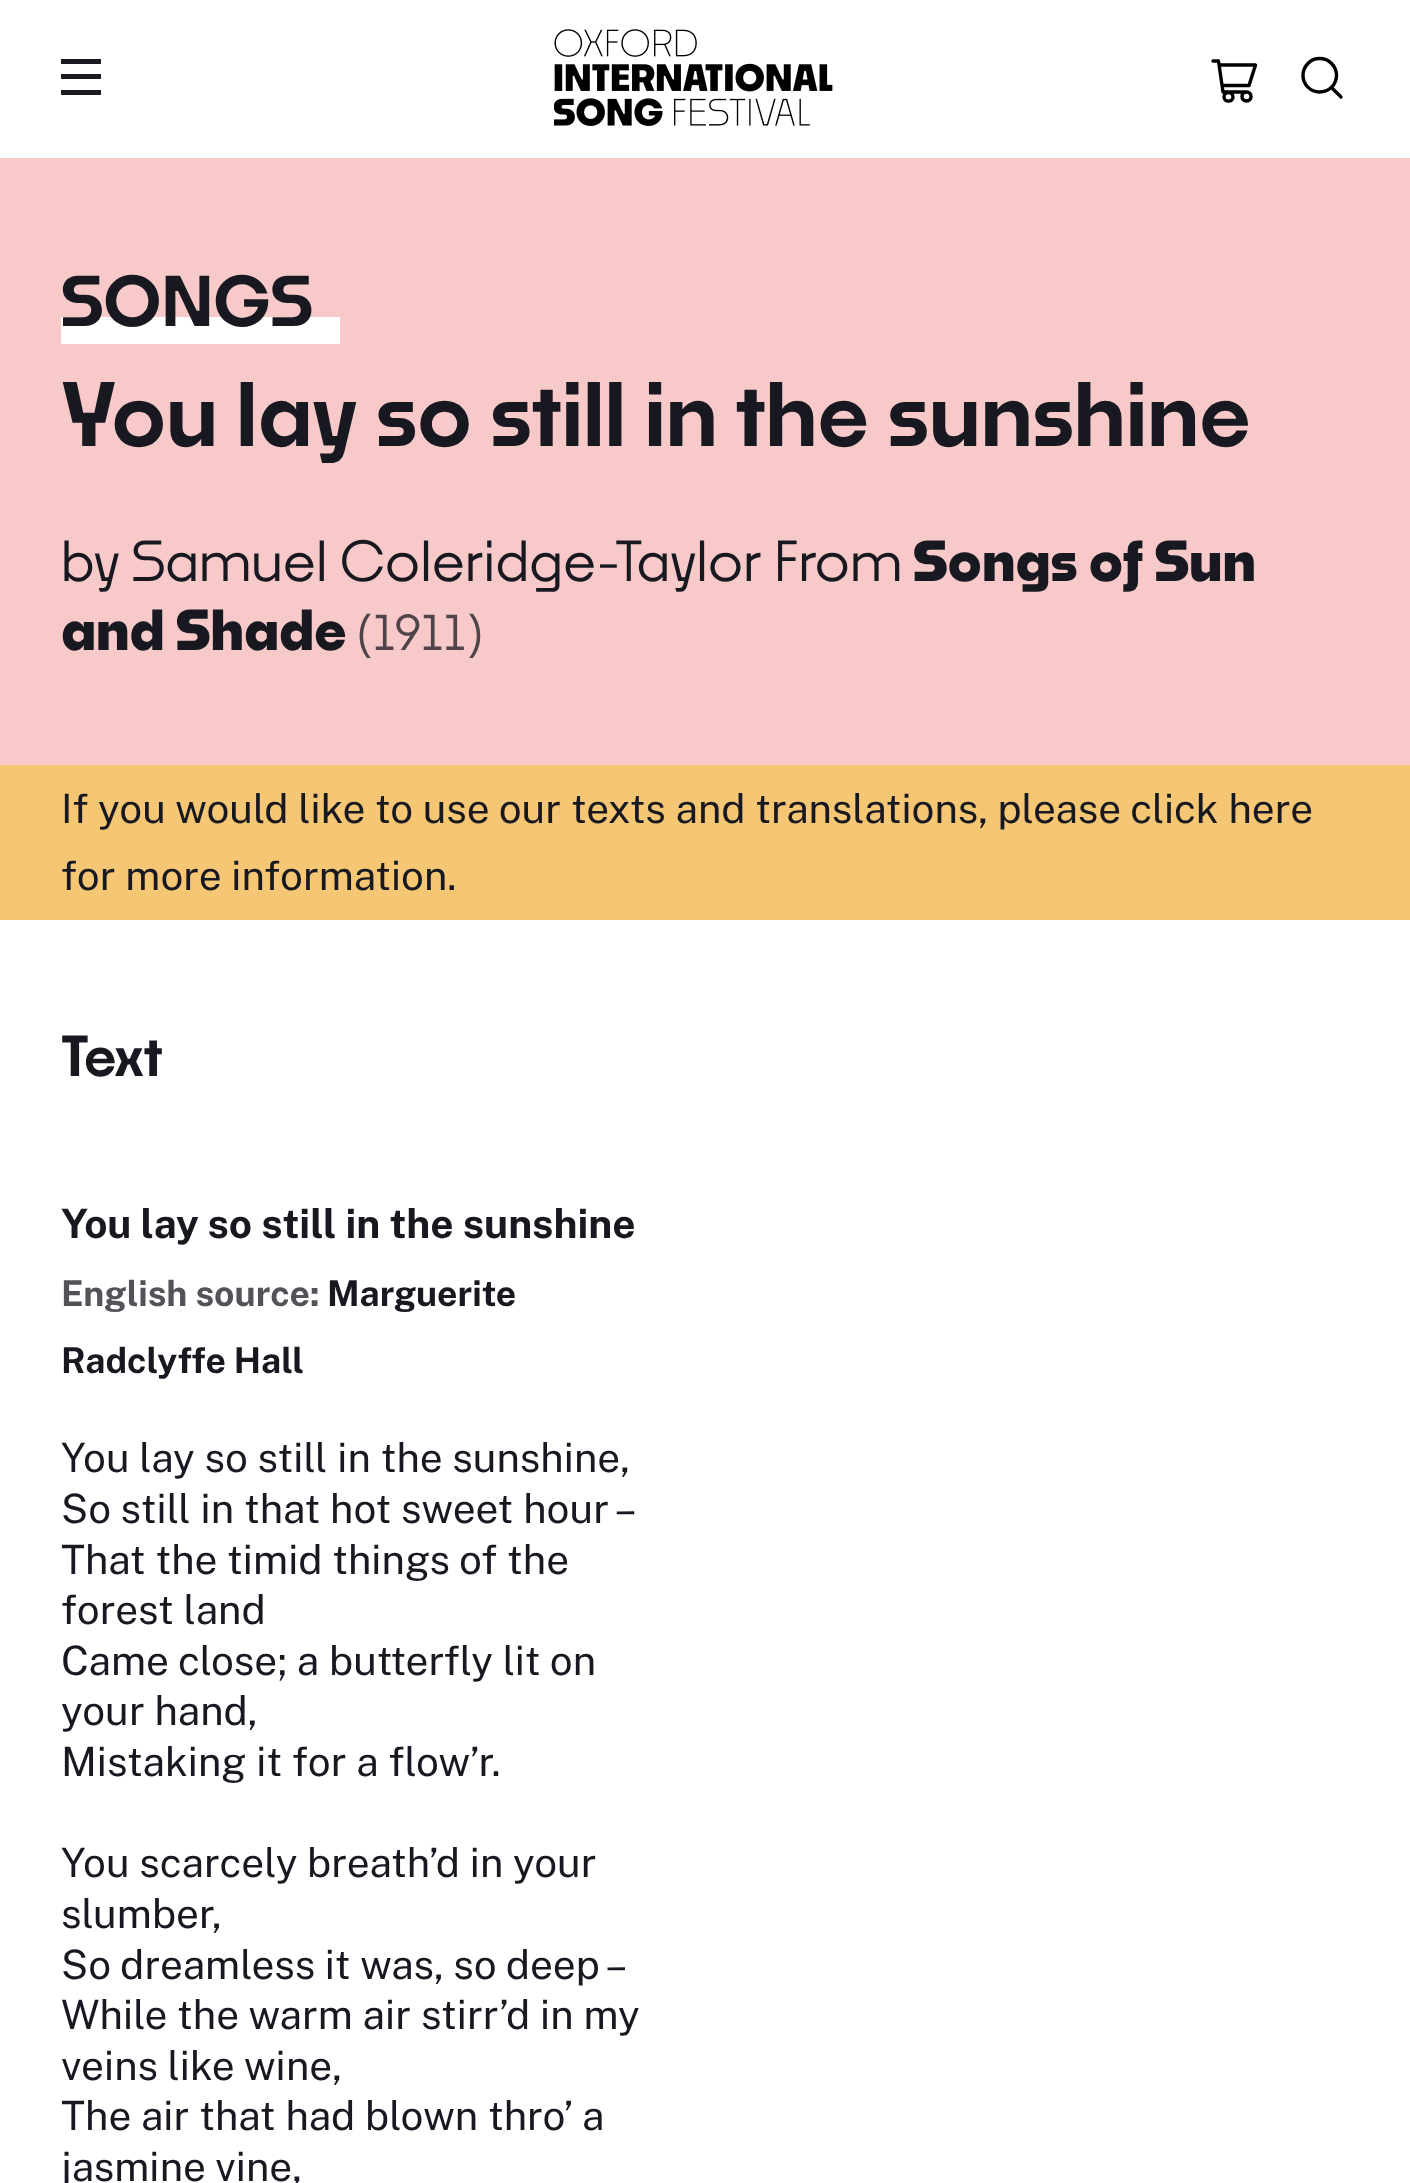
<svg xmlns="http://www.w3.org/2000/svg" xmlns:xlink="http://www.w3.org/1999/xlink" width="1410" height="2183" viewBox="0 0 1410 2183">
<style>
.cls-1{font:600 67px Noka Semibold;fill:#181821}
.cls-2{font:600 85.5px Noka Semibold;fill:#181821}
.cls-3{font:500 54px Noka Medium;fill:#181821}
.cls-4{font:bold 54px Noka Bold;fill:#181821}
.cls-5{font:500 47px Noka Medium;fill:#50444b}
.cls-6{font:40.5px Public Sans;fill:#181821}
.cls-7{font:600 54px Noka Semibold;fill:#181821}
.cls-8{font:bold 40.5px Public Sans;fill:#181821}
.cls-9{font:bold 35.5px Public Sans;fill:#525259}
.cls-10{font:bold 35.5px Public Sans;fill:#181821}
</style>
<rect width="100%" height="100%" fill="#ffffff"/>
<rect fill="#181821" x="61" y="74" width="40" height="5"/>
<rect fill="#181821" x="61" y="59" width="40" height="5"/>
<rect fill="#181821" x="61" y="90" width="40" height="5"/>
<image xlink:href="image0.png" x="554" y="29" width="279" height="97"/>
<path fill="none" stroke="#000000" stroke-width="3.4" stroke-linecap="round" stroke-linejoin="round" d="M1213 61H1218.5L1223 92H1246.5M1246.5 92C1240.5 92 1240.5 101 1246.5 101C1252.5 101 1252.5 92 1246.5 92ZM1222 85.5H1249L1255.5 65H1219M1233 97C1233 102.5 1224 102.5 1224 97C1224 91 1233 91 1233 97Z"/>
<path fill="none" stroke="#000000" stroke-width="3.4" stroke-linecap="round" stroke-linejoin="round" d="M1341 97L1331.5 87.5M1336.5 75.5C1336.5 66 1329 58.5 1319.5 58.5C1310.5 58.5 1303 66 1303 75.5C1303 84.5 1310.5 92 1319.5 92C1329 92 1336.5 84.5 1336.5 75.5Z"/>
<rect fill="#f7c9c8" x="0" y="158" width="1410" height="607"/>
<rect fill="#ffffff" x="61" y="317" width="279" height="27"/>
<rect fill="#f5c674" x="0" y="765" width="1410" height="155"/>
<text class="cls-1" x="61" y="326">SONGS</text>
<text class="cls-2" x="61" y="446">You lay so still in the sunshine</text>
<text class="cls-3" x="61" y="581">by Samuel Coleridge-Taylor From</text>
<text class="cls-4" x="913" y="581">Songs of Sun</text>
<text class="cls-4" x="61" y="650">and Shade</text>
<text class="cls-5" x="358" y="650">(1911)</text>
<text class="cls-6"><tspan x="61" y="823">If you would like to use our texts and translations, please click here</tspan><tspan x="61" y="890">for more information.</tspan></text>
<text class="cls-7" x="61" y="1076">Text</text>
<text class="cls-8" x="61" y="1238">You lay so still in the sunshine</text>
<text class="cls-9" x="61" y="1306">English source:</text>
<text class="cls-10" x="327" y="1306">Marguerite</text>
<text class="cls-10" x="61" y="1373">Radclyffe Hall</text>
<text class="cls-6"><tspan x="61" y="1472">You lay so still in the sunshine,</tspan><tspan x="61" y="1523">So still in that hot sweet hour –</tspan><tspan x="61" y="1574">That the timid things of the</tspan><tspan x="61" y="1624">forest land</tspan><tspan x="61" y="1675">Came close; a butterfly lit on</tspan><tspan x="61" y="1725">your hand,</tspan><tspan x="61" y="1776">Mistaking it for a flow’r.</tspan></text>
<text class="cls-6"><tspan x="61" y="1877">You scarcely breath’d in your</tspan><tspan x="61" y="1928">slumber,</tspan><tspan x="61" y="1979">So dreamless it was, so deep –</tspan><tspan x="61" y="2029">While the warm air stirr’d in my</tspan><tspan x="61" y="2080">veins like wine,</tspan><tspan x="61" y="2130">The air that had blown thro’ a</tspan><tspan x="61" y="2181">jasmine vine,</tspan></text>
</svg>
